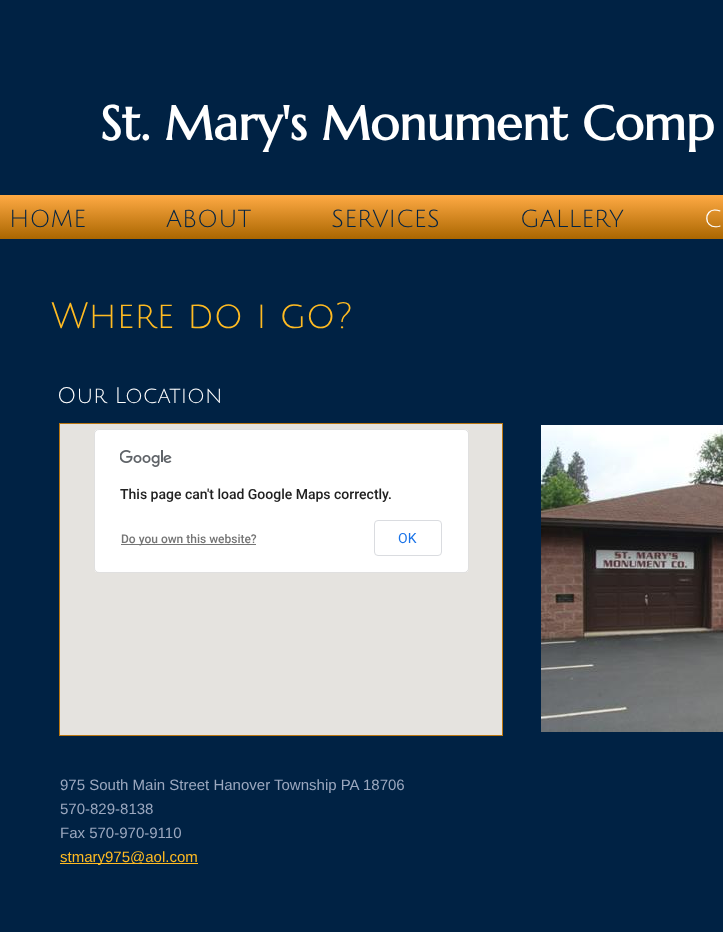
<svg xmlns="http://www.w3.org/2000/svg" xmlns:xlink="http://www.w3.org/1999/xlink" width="723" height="932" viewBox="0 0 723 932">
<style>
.cls-1{font:bold 48px Marcellus;fill:#ffffff}
.cls-2{font:24px Julius Sans One;fill:#002244}
.cls-3{font:24px Julius Sans One;fill:#ffffff}
.cls-4{font:36px Julius Sans One;fill:#ffbb22}
.cls-5{font:22px Julius Sans One;fill:#ffffff}
.cls-6{font:500 14px Roboto;fill:#212121}
.cls-7{font:500 12px Roboto;fill:#757575}
.cls-8{font:14px Roboto;fill:#1a73e8}
.cls-9{font:15px Liberation Sans;fill:#9ba8bf}
.cls-10{font:15px Liberation Sans;fill:#ffbb22}
</style>
<defs>
<linearGradient id="g1" gradientUnits="userSpaceOnUse" x1="491" y1="195" x2="491" y2="239"><stop offset="0" stop-color="#ffaa44"/><stop offset="1" stop-color="#aa6600"/></linearGradient>
</defs>
<rect width="100%" height="100%" fill="#002244"/>
<rect fill="url(#g1)" x="0" y="195" width="723" height="44"/>
<rect fill="none" stroke="#bb7711" x="59.5" y="423.5" width="443" height="312"/>
<rect fill="#e5e3df" x="60" y="424" width="442" height="311"/>
<rect fill="#ffffff" x="94" y="429" width="375" height="144" rx="5"/>
<rect fill="none" stroke="#000000" stroke-opacity="0.12" x="94.5" y="429.5" width="374" height="143" rx="4.5"/>
<image xlink:href="image0.png" x="120" y="450" width="52" height="17"/>
<rect fill="#757575" x="121" y="544" width="135" height="1"/>
<rect fill="none" stroke="#dadce0" x="374.5" y="520.5" width="67" height="35" rx="3.5"/>
<image xlink:href="image1.png" x="541" y="425" width="182" height="307"/>
<rect fill="#ffbb22" x="60" y="863" width="138" height="1"/>
<text class="cls-1" x="100" y="140">St. Mary's Monument Comp</text>
<text class="cls-2" x="9" y="227">HOME</text>
<text class="cls-2" x="166" y="227">ABOUT</text>
<text class="cls-2" x="331" y="227">SERVICES</text>
<text class="cls-2" x="520" y="227">GALLERY</text>
<text class="cls-3" x="704" y="227">C</text>
<text class="cls-4" x="51" y="328">Where do i go?</text>
<text class="cls-5" x="57" y="403">Our Location</text>
<text class="cls-6" x="120" y="499">This page can't load Google Maps correctly.</text>
<text class="cls-7" x="121" y="543">Do you own this website?</text>
<text class="cls-8" x="398" y="543">OK</text>
<text class="cls-9"><tspan x="60" y="790">975 South Main Street Hanover Township PA 18706</tspan><tspan x="60" y="814">570-829-8138</tspan><tspan x="60" y="838">Fax 570-970-9110</tspan></text>
<text class="cls-10" x="60" y="862">stmary975@aol.com</text>
</svg>
